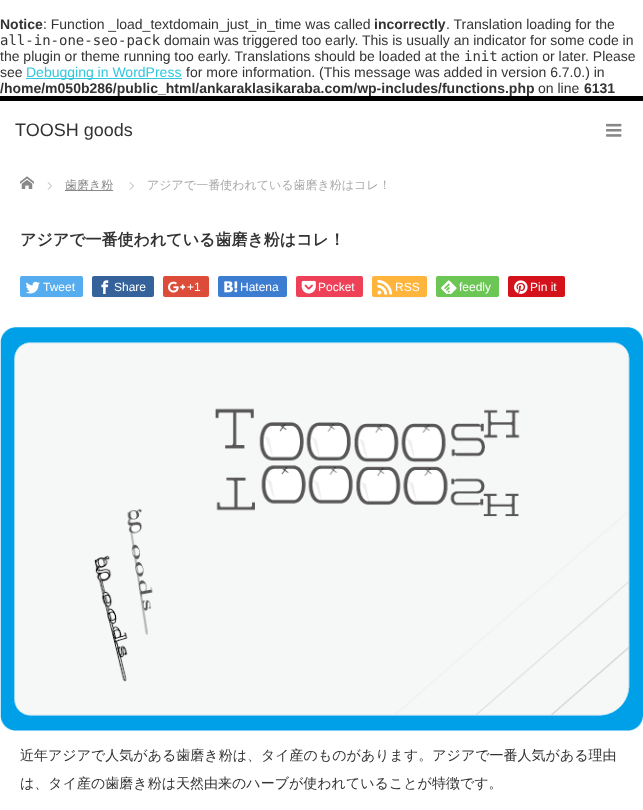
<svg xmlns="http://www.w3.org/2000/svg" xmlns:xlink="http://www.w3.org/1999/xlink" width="643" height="810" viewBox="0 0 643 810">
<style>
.cls-1{font:bold 14px Liberation Sans;fill:#333333}
.cls-2{font:14px Liberation Sans;fill:#333333}
.cls-3{font:14px DejaVu Sans Mono;fill:#333333}
.cls-4{font:14px Liberation Sans;fill:#33c7de}
.cls-5{font:18px Liberation Sans;fill:#333333}
.cls-6{font:500 12px WenQuanYi Zen Hei;fill:#888888}
.cls-7{font:500 12px WenQuanYi Zen Hei;fill:#aaaaaa}
.cls-8{font:bold 16px WenQuanYi Zen Hei;fill:#333333}
.cls-9{font:12px Liberation Sans;fill:#ffffff}
.cls-10{font:500 14px WenQuanYi Zen Hei;fill:#333333}
</style>
<rect width="100%" height="100%" fill="#ffffff"/>
<rect fill="#33c7de" x="26" y="78" width="156" height="1"/>
<rect fill="#000000" x="0" y="96" width="643" height="5"/>
<image xlink:href="image0.png" x="606" y="123" width="16" height="14"/>
<image xlink:href="image1.png" x="20" y="176" width="14" height="13"/>
<image xlink:href="image2.png" x="47" y="182" width="5" height="8"/>
<rect fill="#888888" x="65" y="190" width="48" height="1"/>
<image xlink:href="image2.png" x="129" y="182" width="5" height="8"/>
<path fill="#f7f7f7" d="M20 295C20 301 28 298 32 298H71C75 298 83 301 83 295C83 299 75 297 71 297H21Z"/>
<rect fill="#55acee" x="20" y="276" width="63" height="21" rx="2"/>
<image xlink:href="image3.png" x="25" y="281" width="15" height="13"/>
<path fill="#f7f7f7" d="M92 295C92 301 100 298 104 298H142C146 298 154 301 154 295L153 297H104C100 297 92 299 92 295Z"/>
<rect fill="#35629a" x="92" y="276" width="62" height="21" rx="2"/>
<image xlink:href="image4.png" x="101" y="280" width="8" height="14"/>
<path fill="#f7f7f7" d="M163 295C163 300 168 298 172 298H200C204 298 209 300 209 295C209 296 208 297 207 297H165C164 297 163 296 163 295Z"/>
<rect fill="#dd4b39" x="163" y="276" width="46" height="21" rx="2"/>
<image xlink:href="image5.png" x="168" y="281" width="18" height="12"/>
<path fill="#f7f7f7" d="M218 295C218 301 227 298 231 298H274C278 298 287 301 287 295C287 296 286 297 285 297H219Z"/>
<rect fill="#3c7dd1" x="218" y="276" width="69" height="21" rx="2"/>
<image xlink:href="image6.png" x="224" y="281" width="14" height="12"/>
<path fill="#f7f7f7" d="M296 295C296 301 305 298 308 298H350C354 298 363 301 363 295L362 297H298L296 296Z"/>
<rect fill="#ee4056" x="296" y="276" width="67" height="21" rx="2"/>
<image xlink:href="image7.png" x="301" y="280" width="15" height="14"/>
<path fill="#f7f7f7" d="M372 295C372 300 379 298 382 298H416C420 298 427 300 427 295L426 297H373Z"/>
<rect fill="#ffb53c" x="372" y="276" width="55" height="21" rx="2"/>
<image xlink:href="image8.png" x="377" y="279" width="16" height="16"/>
<path fill="#f7f7f7" d="M436 295C436 301 444 298 448 298H487C491 298 499 301 499 295L498 297H448C444 297 436 299 436 295Z"/>
<rect fill="#6cc655" x="436" y="276" width="63" height="21" rx="2"/>
<image xlink:href="image9.png" x="441" y="280" width="16" height="14"/>
<path fill="#f7f7f7" d="M508 295C508 300 515 298 519 298H554C558 298 565 300 565 295C565 299 558 297 554 297H509Z"/>
<rect fill="#d4121c" x="508" y="276" width="57" height="21" rx="2"/>
<image xlink:href="image10.png" x="514" y="280" width="14" height="14"/>
<image xlink:href="image11.png" x="0" y="327" width="643" height="404"/>
<text class="cls-1" x="0" y="29">Notice</text>
<text class="cls-2" x="43" y="29">: Function _load_textdomain_just_in_time was called</text>
<text class="cls-1" x="374" y="29">incorrectly</text>
<text class="cls-2" x="446" y="29">. Translation loading for the</text>
<text class="cls-3" x="0" y="45">all-in-one-seo-pack</text>
<text class="cls-2" x="164" y="45">domain was triggered too early. This is usually an indicator for some code in</text>
<text class="cls-2" x="0" y="61">the plugin or theme running too early. Translations should be loaded at the</text>
<text class="cls-3" x="464" y="61">init</text>
<text class="cls-2" x="501" y="61">action or later. Please</text>
<text class="cls-2" x="0" y="77">see</text>
<text class="cls-4" x="26" y="77">Debugging in WordPress</text>
<text class="cls-2" x="186" y="77">for more information. (This message was added in version 6.7.0.) in</text>
<text class="cls-1" x="0" y="93">/home/m050b286/public_html/ankaraklasikaraba.com/wp-includes/functions.php</text>
<text class="cls-2" x="538" y="93">on line</text>
<text class="cls-1" x="584" y="93">6131</text>
<text class="cls-5" x="15" y="136">TOOSH goods</text>
<text class="cls-6" x="65" y="189">歯磨き粉</text>
<text class="cls-7" x="147" y="189">アジアで一番使われている歯磨き粉はコレ！</text>
<text class="cls-8" x="20" y="245">アジアで一番使われている歯磨き粉はコレ！</text>
<text class="cls-9" x="43" y="291">Tweet</text>
<text class="cls-9" x="114" y="291">Share</text>
<text class="cls-9" x="187" y="291">+1</text>
<text class="cls-9" x="240" y="291">Hatena</text>
<text class="cls-9" x="318" y="291">Pocket</text>
<text class="cls-9" x="395" y="291">RSS</text>
<text class="cls-9" x="459" y="291">feedly</text>
<text class="cls-9" x="530" y="291">Pin it</text>
<text class="cls-10" x="20" y="760">近年アジアで人気がある歯磨き粉は、タイ産のものがあります。アジアで一番人気がある理由</text>
<text class="cls-10" x="20" y="788">は、タイ産の歯磨き粉は天然由来のハーブが使われていることが特徴です。</text>
</svg>
